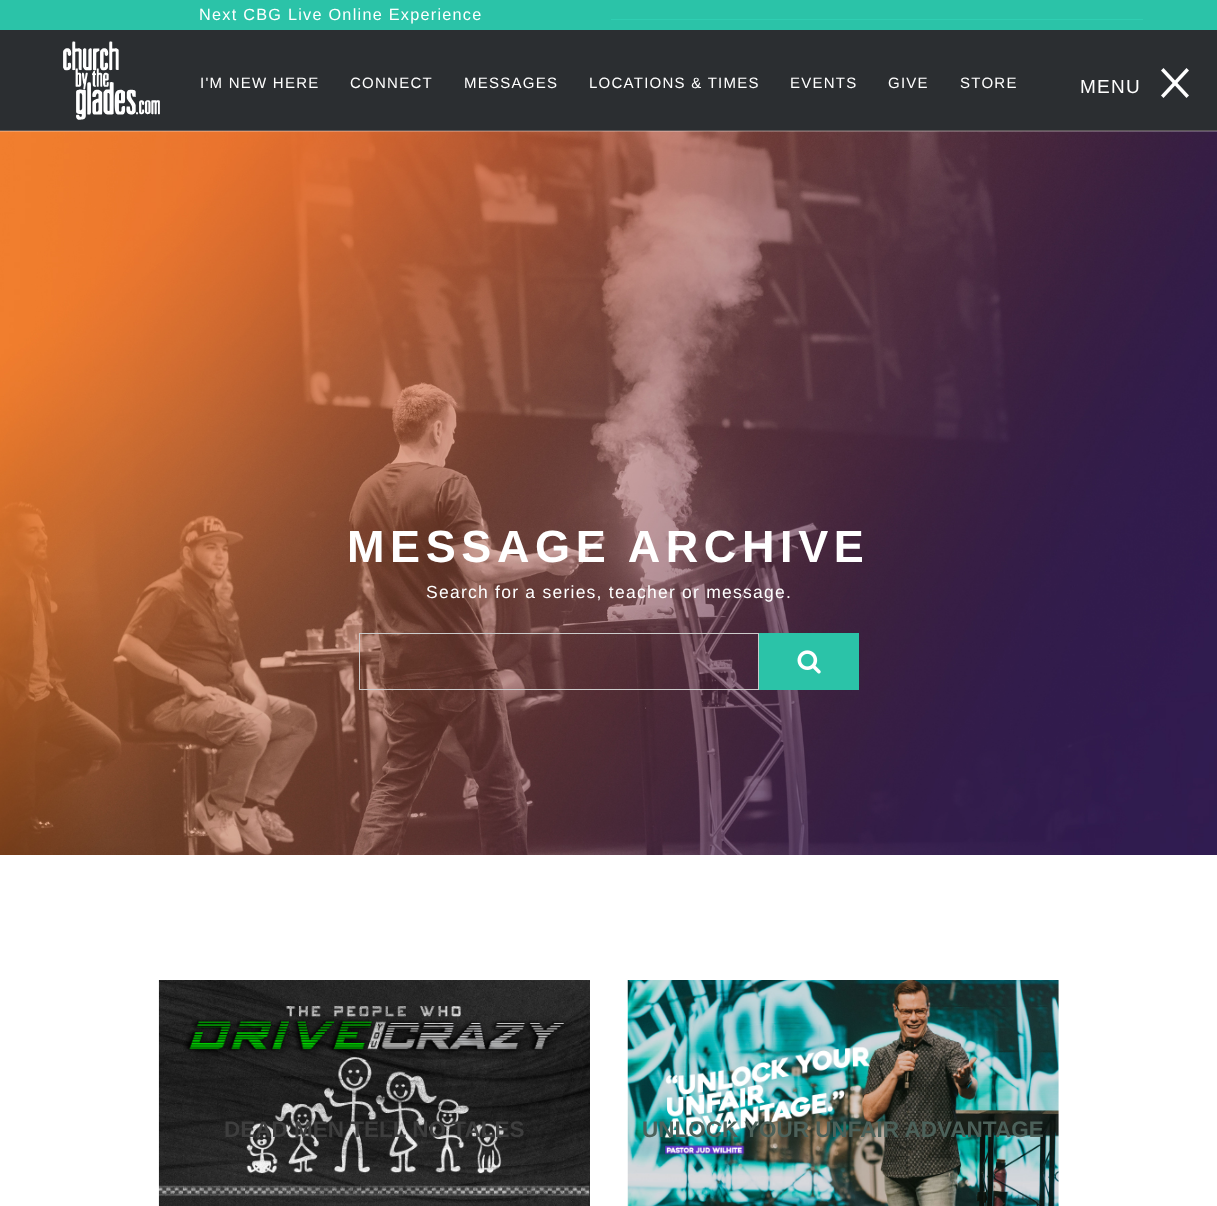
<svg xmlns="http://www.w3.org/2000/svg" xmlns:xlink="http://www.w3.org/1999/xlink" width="1217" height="1206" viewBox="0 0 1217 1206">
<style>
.cls-1{font:16.25px Liberation Sans;letter-spacing:1.25px;fill:#ffffff}
.cls-2{font:15px Liberation Sans;letter-spacing:1.25px;fill:#ffffff}
.cls-3{font:19px Liberation Sans;letter-spacing:1.25px;fill:#ffffff}
.cls-4{font:bold 45px Liberation Sans;letter-spacing:5.6px;fill:#ffffff}
.cls-5{font:17.5px Liberation Sans;letter-spacing:1.25px;fill:#ffffff}
.cls-6{font:bold 22.5px Liberation Sans;fill:#3e3e3e}
.cls-7{font:bold 22.5px Liberation Sans;fill:#4c615a}
</style>
<rect width="100%" height="100%" fill="#ffffff"/>
<rect fill="#2b2e31" x="0" y="30" width="1217" height="100"/>
<rect fill="#5d5959" x="0" y="130" width="1217" height="1"/>
<rect fill="#2bc3a8" x="0" y="0" width="1217" height="30"/>
<rect fill="#2fceb2" x="611" y="19" width="532" height="1"/>
<image xlink:href="image0.png" x="63" y="41" width="97" height="79"/>
<path fill="#ffffff" d="M1163.5 68L1189 95.5L1186.5 98L1161 70.5Z"/>
<path fill="#ffffff" d="M1161 95.5L1186.5 68L1189 70.5L1163.5 98Z"/>
<image xlink:href="image1.png" x="0" y="131" width="1217" height="724"/>
<rect fill="none" stroke="#cccccc" x="359.5" y="633.5" width="399" height="56"/>
<rect fill="#2bc3a8" x="759" y="633" width="100" height="57"/>
<image xlink:href="image2.png" x="797" y="650" width="24" height="24"/>
<image xlink:href="image3.png" x="158" y="980" width="432" height="226"/>
<image xlink:href="image4.png" x="627" y="980" width="432" height="226"/>
<text class="cls-1" x="199" y="20">Next CBG Live Online Experience</text>
<text class="cls-2" x="200" y="88">I'M NEW HERE</text>
<text class="cls-2" x="350" y="88">CONNECT</text>
<text class="cls-2" x="464" y="88">MESSAGES</text>
<text class="cls-2" x="589" y="88">LOCATIONS &amp; TIMES</text>
<text class="cls-2" x="790" y="88">EVENTS</text>
<text class="cls-2" x="888" y="88">GIVE</text>
<text class="cls-2" x="960" y="88">STORE</text>
<text class="cls-3" x="1080" y="93">MENU</text>
<text class="cls-4" x="347" y="562">MESSAGE ARCHIVE</text>
<text class="cls-5" x="426" y="598">Search for a series, teacher or message.</text>
<text class="cls-6" x="224" y="1137">DEAD MEN TELL NO TALES</text>
<text class="cls-7" x="642" y="1137">UNLOCK YOUR UNFAIR ADVANTAGE</text>
</svg>
